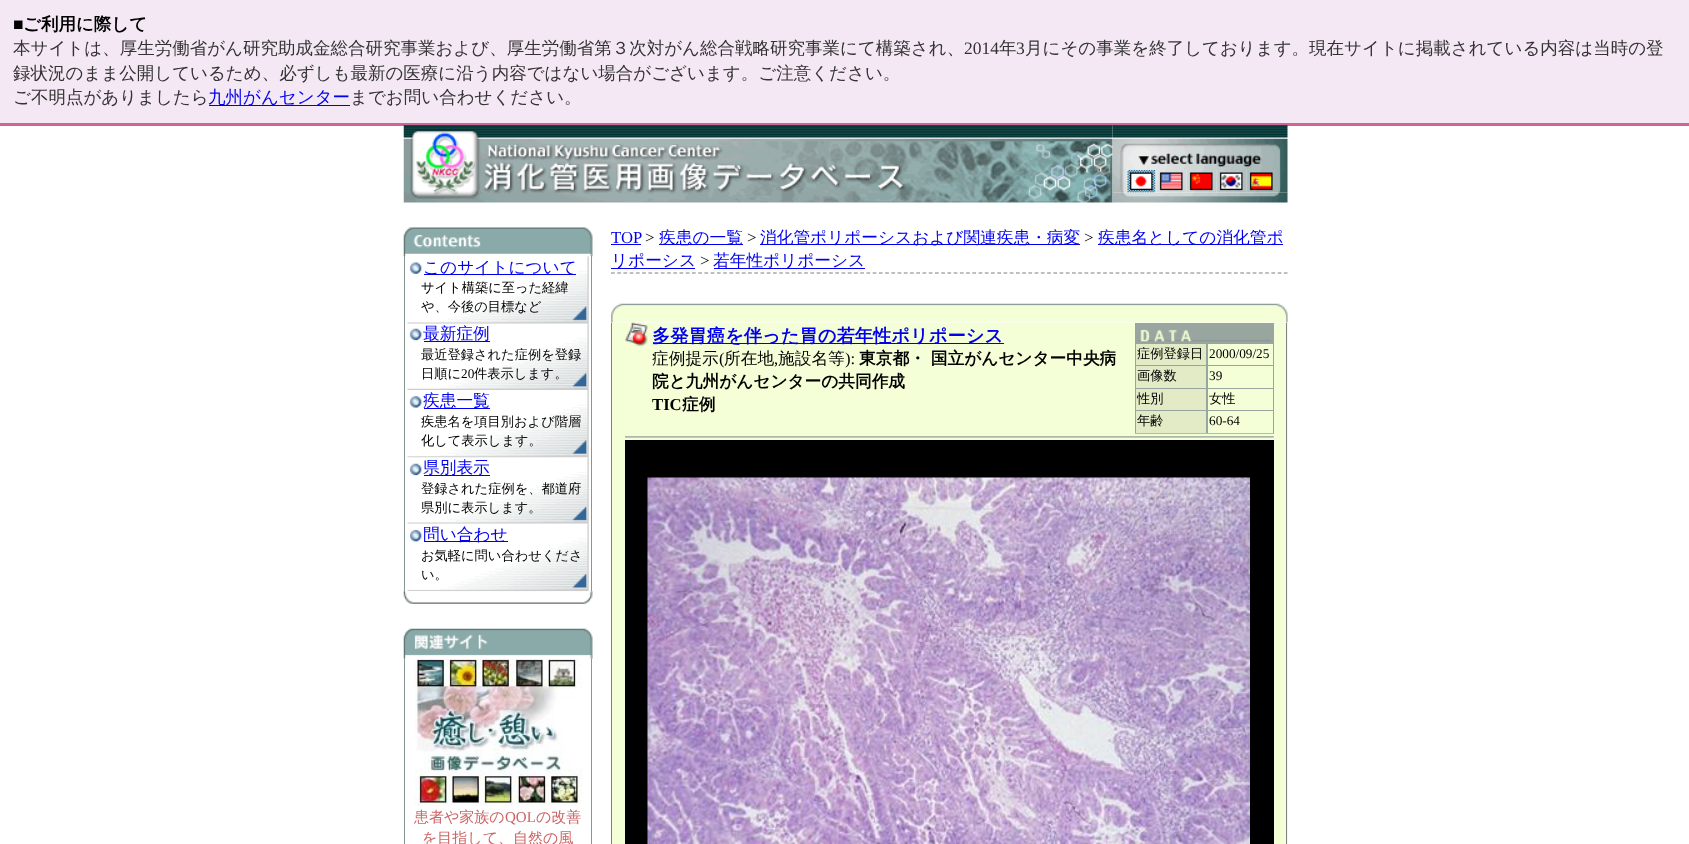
<svg xmlns="http://www.w3.org/2000/svg" xmlns:xlink="http://www.w3.org/1999/xlink" width="1689" height="844" viewBox="0 0 1689 844">
<style>
.cls-1{font:bold 17.5px Liberation Serif;fill:#000000}
.cls-2{font:bold 17.5px WenQuanYi Zen Hei;fill:#000000}
.cls-3{font:500 17.5px WenQuanYi Zen Hei;fill:#333333}
.cls-4{font:17.5px Liberation Serif;fill:#333333}
.cls-5{font:500 17.5px WenQuanYi Zen Hei;fill:#0000ee}
.cls-6{font:500 16.7px WenQuanYi Zen Hei;fill:#0000ee}
.cls-7{font:500 13.25px WenQuanYi Zen Hei;fill:#000000}
.cls-8{font:13.25px Liberation Serif;fill:#000000}
.cls-9{font:500 15px WenQuanYi Zen Hei;fill:#cc6666}
.cls-10{font:15px Liberation Serif;fill:#cc6666}
.cls-11{font:16.7px Liberation Serif;fill:#0000ee}
.cls-12{font:16.7px Liberation Serif;fill:#000000}
.cls-13{font:bold 18.3px WenQuanYi Zen Hei;fill:#0000ee}
.cls-14{font:500 16.7px WenQuanYi Zen Hei;fill:#000000}
.cls-15{font:bold 16.7px WenQuanYi Zen Hei;fill:#000000}
.cls-16{font:bold 16.7px Liberation Serif;fill:#000000}
</style>
<rect width="100%" height="100%" fill="#ffffff"/>
<rect fill="#f4e8f4" x="0" y="0" width="1689" height="123"/>
<rect fill="#cc6699" x="0" y="123" width="1689" height="3"/>
<rect fill="#0000ee" x="209" y="105" width="141" height="1"/>
<image xlink:href="image0.png" x="403" y="125" width="710" height="78"/>
<image xlink:href="image1.png" x="1112" y="125" width="176" height="45"/>
<image xlink:href="image2.png" x="1112" y="170" width="15" height="23"/>
<image xlink:href="image3.png" x="1126" y="170" width="31" height="23"/>
<image xlink:href="image4.png" x="1156" y="170" width="31" height="23"/>
<image xlink:href="image5.png" x="1186" y="170" width="31" height="23"/>
<image xlink:href="image6.png" x="1216" y="170" width="31" height="23"/>
<image xlink:href="image7.png" x="1246" y="170" width="29" height="23"/>
<image xlink:href="image8.png" x="1275" y="170" width="13" height="23"/>
<image xlink:href="image9.png" x="1112" y="192" width="176" height="11"/>
<image xlink:href="image11.png" x="407" y="256" width="182" height="68"/>
<rect fill="#889696" x="591" y="256" width="1" height="335"/>
<rect fill="#889696" x="404" y="256" width="1" height="335"/>
<image xlink:href="image10.png" x="403" y="227" width="190" height="30"/>
<image xlink:href="image12.png" x="409" y="262" width="13" height="12"/>
<rect fill="#0000ee" x="424" y="274" width="152" height="1"/>
<image xlink:href="image13.png" x="407" y="323" width="182" height="67"/>
<image xlink:href="image14.png" x="409" y="328" width="13" height="13"/>
<rect fill="#0000ee" x="424" y="341" width="66" height="1"/>
<image xlink:href="image15.png" x="407" y="390" width="182" height="68"/>
<image xlink:href="image16.png" x="409" y="396" width="13" height="12"/>
<rect fill="#0000ee" x="424" y="408" width="66" height="1"/>
<image xlink:href="image17.png" x="407" y="457" width="182" height="67"/>
<image xlink:href="image14.png" x="409" y="463" width="13" height="13"/>
<rect fill="#0000ee" x="424" y="475" width="66" height="1"/>
<image xlink:href="image18.png" x="407" y="523" width="182" height="69"/>
<image xlink:href="image19.png" x="409" y="529" width="13" height="13"/>
<rect fill="#0000ee" x="424" y="541" width="84" height="1"/>
<image xlink:href="image20.png" x="403" y="591" width="190" height="13"/>
<image xlink:href="image21.png" x="403" y="628" width="190" height="31"/>
<rect fill="#889696" x="591" y="659" width="1" height="185"/>
<rect fill="#889696" x="404" y="659" width="1" height="185"/>
<image xlink:href="image22.png" x="414" y="658" width="169" height="148"/>
<path fill="none" stroke="#808080" stroke-width="1.2" stroke-dasharray="3.75 2.48" d="M611 273H1287.5"/>
<rect fill="#0000ee" x="611" y="244" width="30" height="1"/>
<rect fill="#0000ee" x="659" y="244" width="84" height="1"/>
<rect fill="#0000ee" x="760" y="244" width="320" height="1"/>
<rect fill="#0000ee" x="1098" y="244" width="185" height="1"/>
<rect fill="#0000ee" x="611" y="268" width="84" height="1"/>
<rect fill="#0000ee" x="714" y="268" width="151" height="1"/>
<rect fill="#f5ffd7" x="612" y="323" width="676" height="521"/>
<image xlink:href="image24.png" x="625" y="322" width="23" height="25"/>
<image xlink:href="image23.png" x="611" y="303" width="677" height="20"/>
<rect fill="#808080" x="1286" y="323" width="1" height="521"/>
<rect fill="#808080" x="611" y="323" width="1" height="521"/>
<rect fill="#0000ee" x="653" y="343" width="351" height="1"/>
<rect fill="#99a6a0" x="1135" y="323" width="139" height="111"/>
<image xlink:href="image25.png" x="1137" y="329" width="134" height="13"/>
<rect fill="#e2ebc5" x="1136" y="344" width="70" height="21"/>
<rect fill="#f5ffd7" x="1208" y="344" width="65" height="21"/>
<rect fill="#e2ebc5" x="1136" y="366" width="70" height="22"/>
<rect fill="#f5ffd7" x="1208" y="366" width="65" height="22"/>
<rect fill="#e2ebc5" x="1136" y="389" width="70" height="21"/>
<rect fill="#f5ffd7" x="1208" y="389" width="65" height="21"/>
<rect fill="#e2ebc5" x="1136" y="411" width="70" height="22"/>
<rect fill="#f5ffd7" x="1208" y="411" width="65" height="22"/>
<image xlink:href="image26.png" x="625" y="433" width="649" height="5"/>
<rect fill="#000000" x="625" y="440" width="649" height="404"/>
<image xlink:href="image27.png" x="647" y="477" width="603" height="367"/>
<text class="cls-1" x="13" y="30">■</text>
<text class="cls-2" x="23" y="30">ご利用に際して</text>
<text class="cls-3" x="13" y="54">本サイトは、厚生労働省がん研究助成金総合研究事業および、厚生労働省第３次対がん総合戦略研究事業にて構築され、</text>
<text class="cls-4" x="964" y="54">2014</text>
<text class="cls-3" x="999" y="54">年</text>
<text class="cls-4" x="1016" y="54">3</text>
<text class="cls-3" x="1025" y="54">月にその事業を終了しております。現在サイトに掲載されている内容は当時の登</text>
<text class="cls-3"><tspan x="13" y="79">録状況のまま公開しているため、必ずしも最新の医療に沿う内容ではない場合がございます。ご注意ください。</tspan><tspan x="13" y="103">ご不明点がありましたら</tspan></text>
<text class="cls-5" x="208" y="103">九州がんセンター</text>
<text class="cls-3" x="350" y="103">までお問い合わせください。</text>
<text class="cls-6" x="423" y="273">このサイトについて</text>
<text class="cls-7"><tspan x="421" y="292">サイト構築に至った経緯</tspan><tspan x="421" y="311">や、今後の目標など</tspan></text>
<text class="cls-6" x="423" y="339">最新症例</text>
<text class="cls-7"><tspan x="421" y="359">最近登録された症例を登録</tspan><tspan x="421" y="378">日順に</tspan></text>
<text class="cls-8" x="461" y="378">20</text>
<text class="cls-7" x="474" y="378">件表示します。</text>
<text class="cls-6" x="423" y="406">疾患一覧</text>
<text class="cls-7"><tspan x="421" y="426">疾患名を項目別および階層</tspan><tspan x="421" y="445">化して表示します。</tspan></text>
<text class="cls-6" x="423" y="473">県別表示</text>
<text class="cls-7"><tspan x="421" y="493">登録された症例を、都道府</tspan><tspan x="421" y="512">県別に表示します。</tspan></text>
<text class="cls-6" x="423" y="540">問い合わせ</text>
<text class="cls-7"><tspan x="421" y="560">お気軽に問い合わせくださ</tspan><tspan x="421" y="579">い。</tspan></text>
<text class="cls-9" x="414" y="822">患者や家族の</text>
<text class="cls-10" x="505" y="822">QOL</text>
<text class="cls-9" x="536" y="822">の改善</text>
<text class="cls-9" x="422" y="843">を目指して、自然の風</text>
<text class="cls-11" x="611" y="243">TOP</text>
<text class="cls-12" x="645" y="243">&gt;</text>
<text class="cls-6" x="659" y="243">疾患の一覧</text>
<text class="cls-12" x="747" y="243">&gt;</text>
<text class="cls-6" x="760" y="243">消化管ポリポーシスおよび関連疾患・病変</text>
<text class="cls-12" x="1084" y="243">&gt;</text>
<text class="cls-6" x="1098" y="243">疾患名としての消化管ポ</text>
<text class="cls-6" x="611" y="266">リポーシス</text>
<text class="cls-12" x="700" y="266">&gt;</text>
<text class="cls-6" x="713" y="266">若年性ポリポーシス</text>
<text class="cls-13" x="652" y="342">多発胃癌を伴った胃の若年性ポリポーシス</text>
<text class="cls-14" x="652" y="364">症例提示</text>
<text class="cls-12" x="719" y="364">(</text>
<text class="cls-14" x="724" y="364">所在地</text>
<text class="cls-12" x="774" y="364">,</text>
<text class="cls-14" x="778" y="364">施設名等</text>
<text class="cls-12" x="845" y="364">):</text>
<text class="cls-15" x="859" y="364">東京都・ 国立がんセンター中央病</text>
<text class="cls-15" x="652" y="387">院と九州がんセンターの共同作成</text>
<text class="cls-16" x="652" y="410">TIC</text>
<text class="cls-15" x="682" y="410">症例</text>
<text class="cls-7" x="1137" y="358">症例登録日</text>
<text class="cls-8" x="1209" y="358">2000/09/25</text>
<text class="cls-7" x="1137" y="380">画像数</text>
<text class="cls-8" x="1209" y="380">39</text>
<text class="cls-7" x="1137" y="403">性別</text>
<text class="cls-7" x="1209" y="403">女性</text>
<text class="cls-7" x="1137" y="425">年齢</text>
<text class="cls-8" x="1209" y="425">60-64</text>
</svg>
